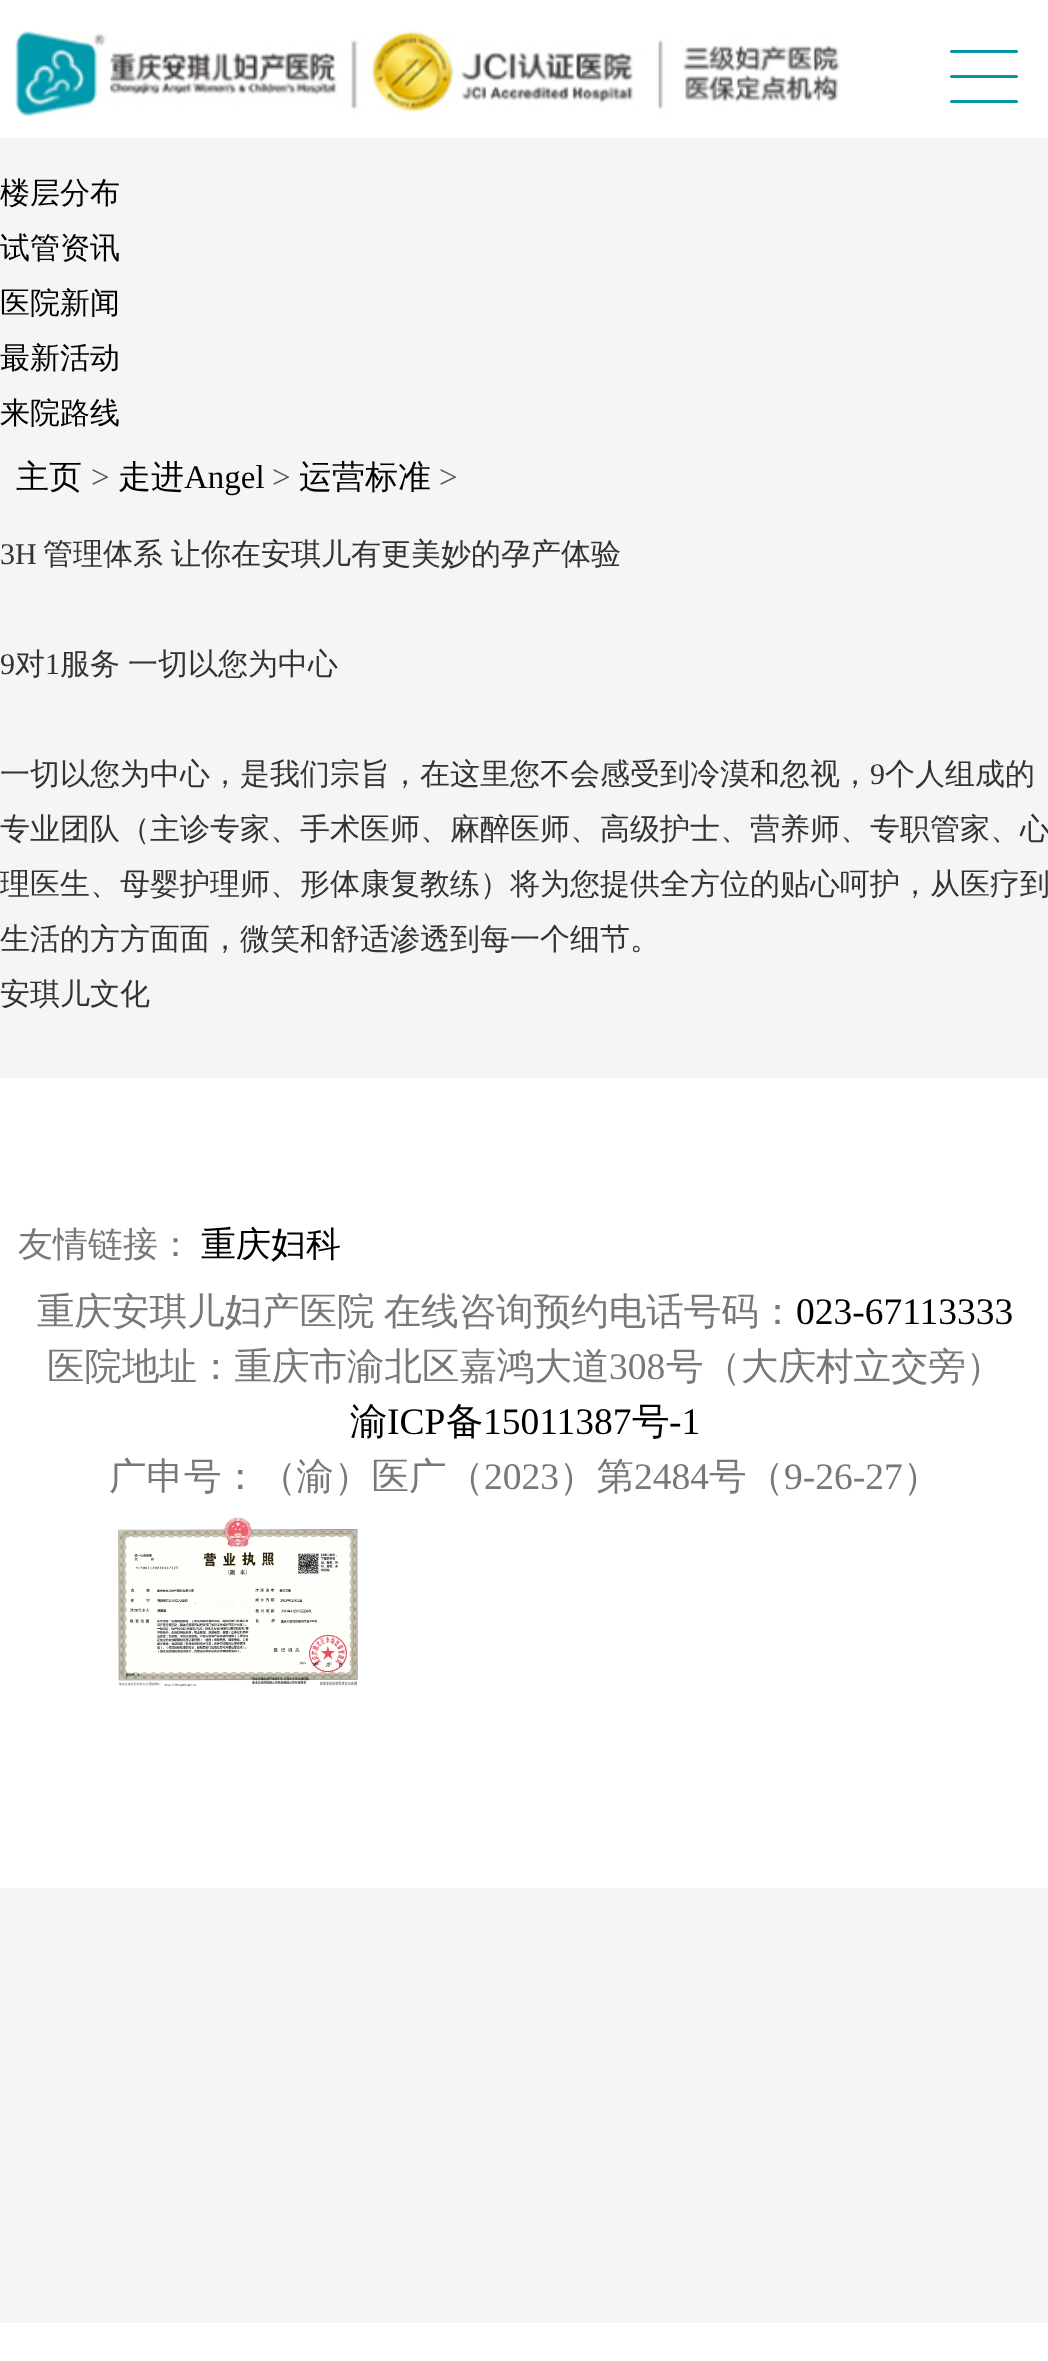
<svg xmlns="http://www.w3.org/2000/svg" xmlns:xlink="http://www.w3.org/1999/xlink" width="1048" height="2361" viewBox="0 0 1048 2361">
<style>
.cls-1{font:500 30px WenQuanYi Zen Hei;fill:#000000}
.cls-2{font:500 33px WenQuanYi Zen Hei;fill:#000000}
.cls-3{font:33px Liberation Serif;fill:#565656}
.cls-4{font:33px Liberation Serif;fill:#000000}
.cls-5{font:30px Liberation Serif;fill:#333333}
.cls-6{font:500 30px WenQuanYi Zen Hei;fill:#333333}
.cls-7{font:500 35px WenQuanYi Zen Hei;fill:#787878}
.cls-8{font:500 35px WenQuanYi Zen Hei;fill:#000000}
.cls-9{font:500 37.5px WenQuanYi Zen Hei;fill:#787878}
.cls-10{font:37.5px Liberation Serif;fill:#000000}
.cls-11{font:37.5px Liberation Serif;fill:#787878}
.cls-12{font:500 37.5px WenQuanYi Zen Hei;fill:#000000}
</style>
<rect width="100%" height="100%" fill="#f5f5f5"/>
<rect fill="#ffffff" x="0" y="0" width="1048" height="138"/>
<image xlink:href="image0.png" x="15" y="31" width="825" height="86"/>
<rect fill="#0495a8" x="950" y="75" width="68" height="3" rx="1.5"/>
<rect fill="#0495a8" x="950" y="50" width="68" height="3" rx="1.5"/>
<rect fill="#0495a8" x="950" y="100" width="68" height="3" rx="1.5"/>
<rect fill="#ffffff" x="0" y="1078" width="1048" height="810"/>
<image xlink:href="image1.png" x="118" y="1517" width="240" height="170"/>
<rect fill="#ffffff" x="0" y="2323" width="1048" height="38"/>
<text class="cls-1"><tspan x="0" y="203">楼层分布</tspan><tspan x="0" y="258">试管资讯</tspan><tspan x="0" y="313">医院新闻</tspan><tspan x="0" y="368">最新活动</tspan><tspan x="0" y="423">来院路线</tspan></text>
<text class="cls-2" x="16" y="488">主页</text>
<text class="cls-3" x="91" y="488">&gt;</text>
<text class="cls-2" x="118" y="488">走进</text>
<text class="cls-4" x="184" y="488">Angel</text>
<text class="cls-3" x="272" y="488">&gt;</text>
<text class="cls-2" x="299" y="488">运营标准</text>
<text class="cls-3" x="439" y="488">&gt;</text>
<text class="cls-5" x="0" y="564">3H</text>
<text class="cls-6" x="43" y="564" word-spacing="-1">管理体系 让你在安琪儿有更美妙的孕产体验</text>
<text class="cls-5" x="0" y="674">9</text>
<text class="cls-6" x="15" y="674">对</text>
<text class="cls-5" x="45" y="674">1</text>
<text class="cls-6" x="60" y="674" word-spacing="-1">服务 一切以您为中心</text>
<text class="cls-6" x="0" y="784">一切以您为中心，是我们宗旨，在这里您不会感受到冷漠和忽视，</text>
<text class="cls-5" x="870" y="784">9</text>
<text class="cls-6" x="885" y="784">个人组成的</text>
<text class="cls-6"><tspan x="0" y="839">专业团队（主诊专家、手术医师、麻醉医师、高级护士、营养师、专职管家、心</tspan><tspan x="0" y="894">理医生、母婴护理师、形体康复教练）将为您提供全方位的贴心呵护，从医疗到</tspan><tspan x="0" y="949">生活的方方面面，微笑和舒适渗透到每一个细节。</tspan><tspan x="0" y="1004">安琪儿文化</tspan></text>
<text class="cls-7" x="18" y="1256">友情链接：</text>
<text class="cls-8" x="201" y="1256">重庆妇科</text>
<text class="cls-9" x="37" y="1324" word-spacing="-2">重庆安琪儿妇产医院 在线咨询预约电话号码：</text>
<text class="cls-10" x="796" y="1324">023-67113333</text>
<text class="cls-9" x="47" y="1379">医院地址：重庆市渝北区嘉鸿大道</text>
<text class="cls-11" x="609" y="1379">308</text>
<text class="cls-9" x="666" y="1379">号（大庆村立交旁）</text>
<text class="cls-12" x="350" y="1434">渝</text>
<text class="cls-10" x="387" y="1434">ICP</text>
<text class="cls-12" x="446" y="1434">备</text>
<text class="cls-10" x="483" y="1434">15011387</text>
<text class="cls-12" x="632" y="1434">号</text>
<text class="cls-10" x="669" y="1434">-1</text>
<text class="cls-9" x="109" y="1489">广申号：（渝）医广（</text>
<text class="cls-11" x="484" y="1489">2023</text>
<text class="cls-9" x="559" y="1489">）第</text>
<text class="cls-11" x="634" y="1489">2484</text>
<text class="cls-9" x="709" y="1489">号（</text>
<text class="cls-11" x="784" y="1489">9-26-27</text>
<text class="cls-9" x="903" y="1489">）</text>
</svg>
